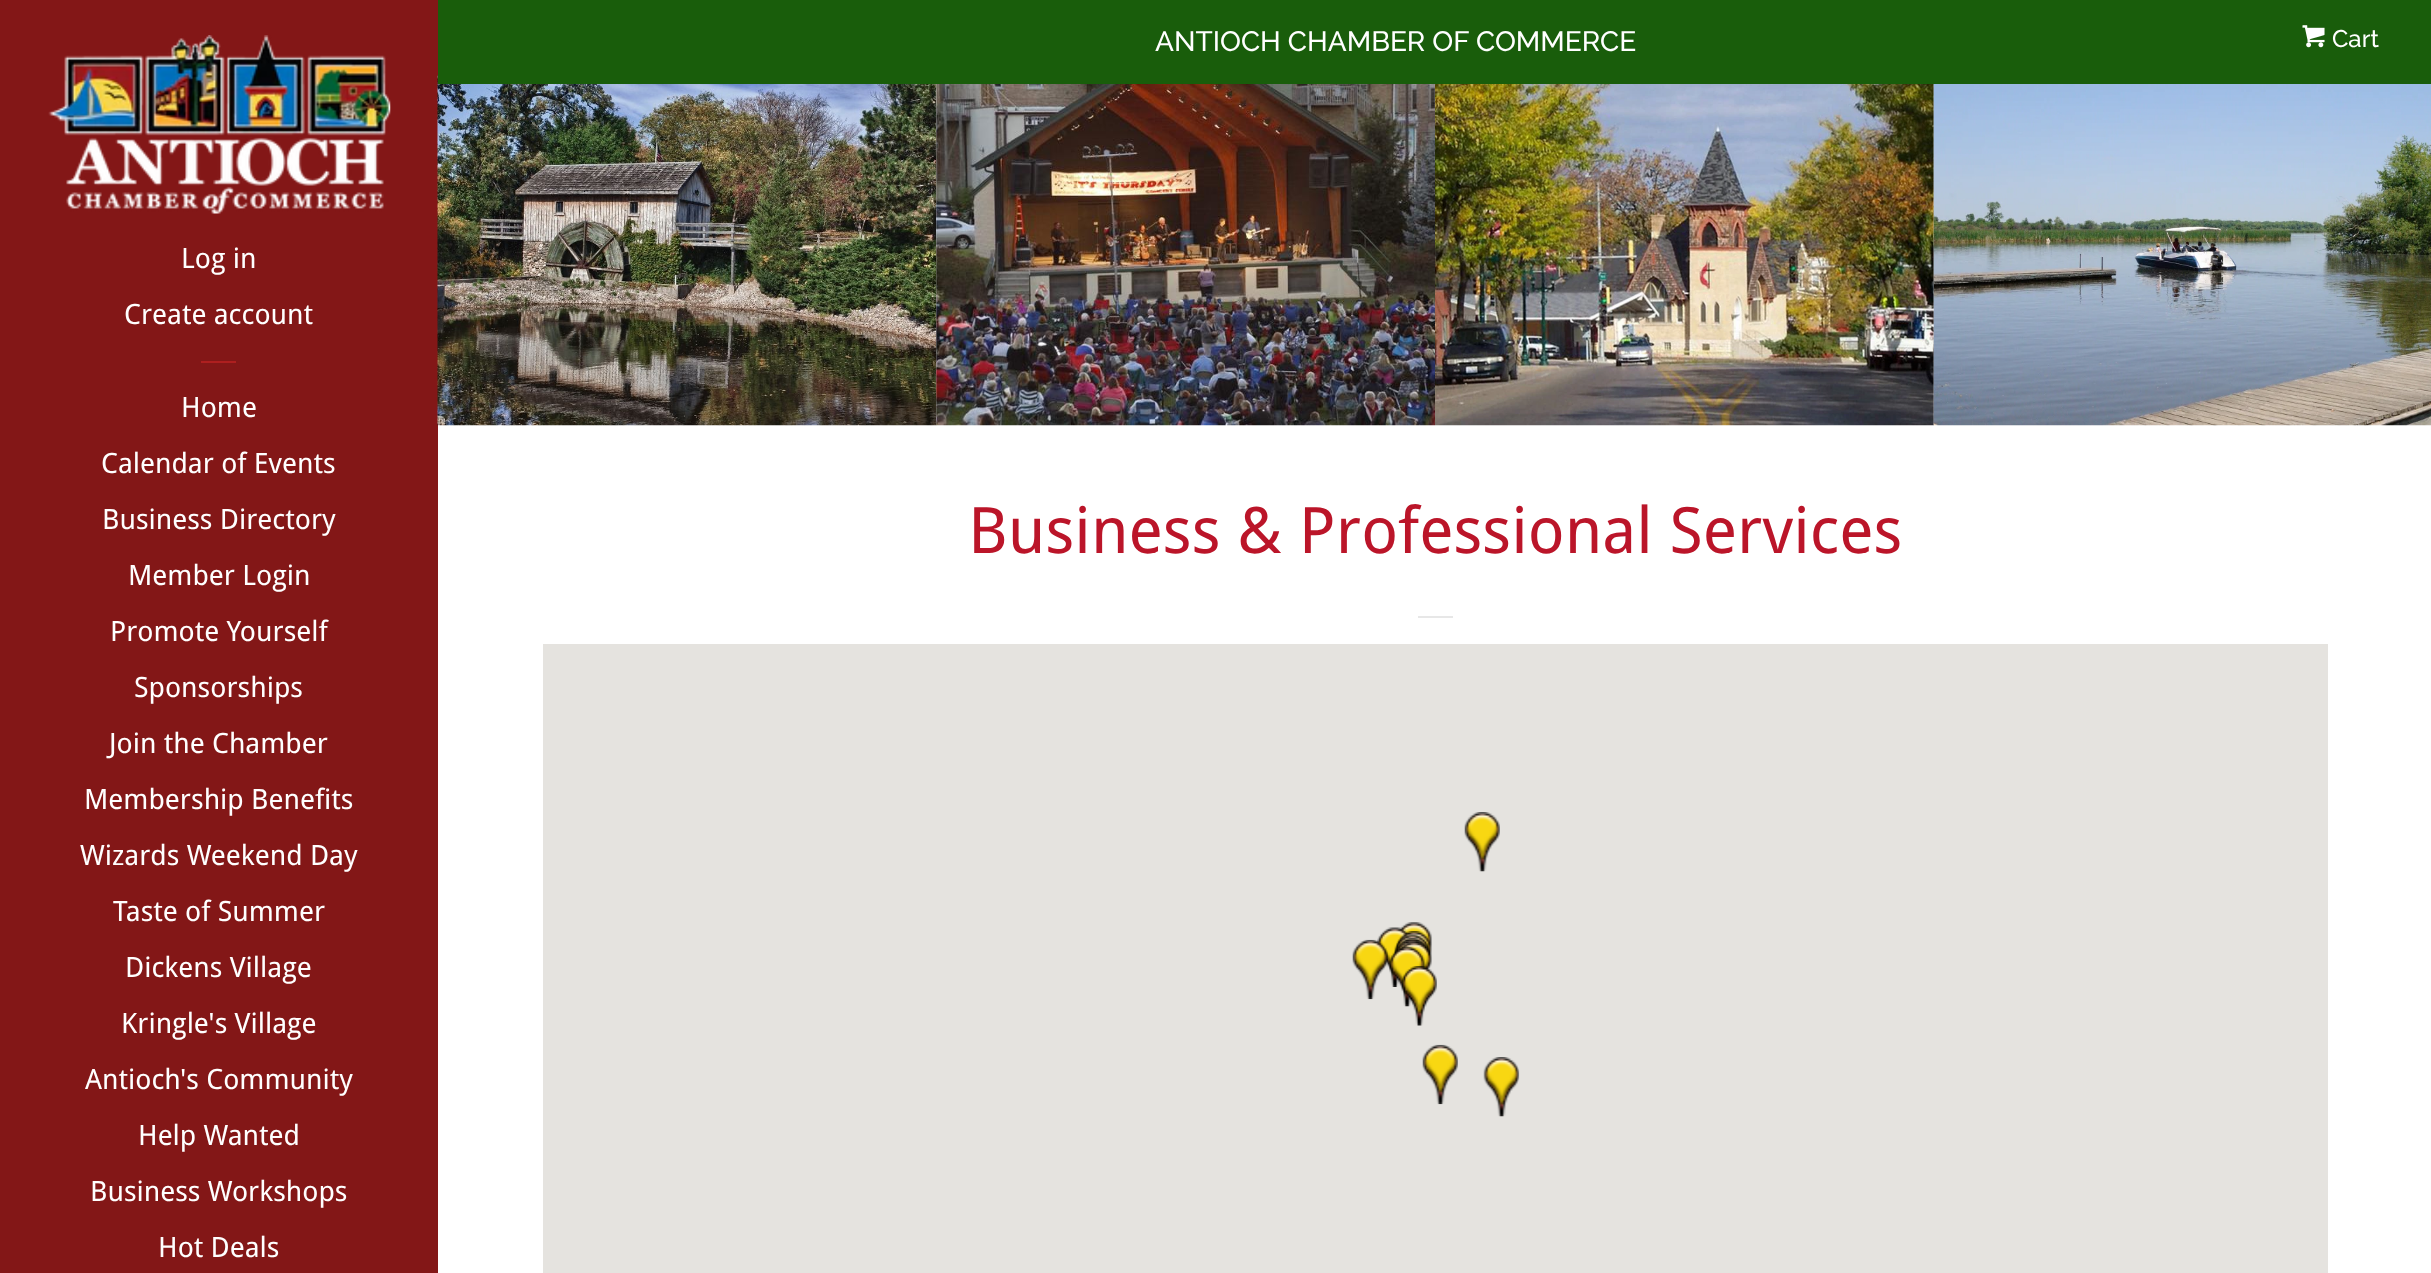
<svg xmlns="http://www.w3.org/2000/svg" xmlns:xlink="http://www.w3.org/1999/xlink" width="2431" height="1273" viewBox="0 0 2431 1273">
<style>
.cls-1{font:28px Droid Sans;fill:#ffffff}
.cls-2{font:500 28px Raleway;fill:#ffffff}
.cls-3{font:500 24px Raleway;fill:#ffffff}
.cls-4{font:64px Droid Sans;fill:#bb1529}
</style>
<rect width="100%" height="100%" fill="#831717"/>
<image xlink:href="image0.png" x="48" y="35" width="343" height="179"/>
<rect fill="#ae1f1f" x="201" y="361" width="35" height="2"/>
<rect fill="#ffffff" x="438" y="84" width="1993" height="1189"/>
<image xlink:href="image2.png" x="437" y="75" width="500" height="351"/>
<rect fill="#195d0b" x="438" y="0" width="1993" height="84"/>
<image xlink:href="image1.png" x="2302" y="25" width="23" height="23"/>
<image xlink:href="image3.png" x="936" y="84" width="499" height="342"/>
<image xlink:href="image4.png" x="1435" y="84" width="499" height="342"/>
<image xlink:href="image5.png" x="1933" y="84" width="498" height="342"/>
<rect fill="#e7e7e7" x="1418" y="616" width="35" height="2"/>
<rect fill="#e5e3df" x="543" y="644" width="1785" height="629"/>
<image xlink:href="image6.png" x="1464" y="812" width="36" height="60"/>
<image xlink:href="image8.png" x="1399" y="922" width="33" height="30"/>
<image xlink:href="image7.png" x="1377" y="927" width="33" height="60"/>
<image xlink:href="image9.png" x="1396" y="931" width="36" height="28"/>
<image xlink:href="image10.png" x="1394" y="934" width="36" height="26"/>
<image xlink:href="image11.png" x="1352" y="939" width="36" height="61"/>
<image xlink:href="image12.png" x="1394" y="938" width="36" height="60"/>
<image xlink:href="image13.png" x="1394" y="939" width="36" height="61"/>
<image xlink:href="image14.png" x="1396" y="941" width="36" height="60"/>
<image xlink:href="image15.png" x="1389" y="946" width="36" height="61"/>
<image xlink:href="image16.png" x="1401" y="966" width="36" height="60"/>
<image xlink:href="image17.png" x="1422" y="1044" width="36" height="61"/>
<image xlink:href="image18.png" x="1483" y="1057" width="37" height="60"/>
<text class="cls-1" x="181" y="268">Log in</text>
<text class="cls-1" x="124" y="324">Create account</text>
<text class="cls-1" x="181" y="417">Home</text>
<text class="cls-1" x="101" y="473">Calendar of Events</text>
<text class="cls-1" x="102" y="529">Business Directory</text>
<text class="cls-1" x="128" y="585">Member Login</text>
<text class="cls-1" x="110" y="641">Promote Yourself</text>
<text class="cls-1" x="134" y="697">Sponsorships</text>
<text class="cls-1" x="109" y="753">Join the Chamber</text>
<text class="cls-1" x="84" y="809">Membership Benefits</text>
<text class="cls-1" x="80" y="865">Wizards Weekend Day</text>
<text class="cls-1" x="113" y="921">Taste of Summer</text>
<text class="cls-1" x="125" y="977">Dickens Village</text>
<text class="cls-1" x="121" y="1033">Kringle's Village</text>
<text class="cls-1" x="85" y="1089">Antioch's Community</text>
<text class="cls-1" x="138" y="1145">Help Wanted</text>
<text class="cls-1" x="90" y="1201">Business Workshops</text>
<text class="cls-1" x="158" y="1257">Hot Deals</text>
<text class="cls-2" x="1155" y="51">ANTIOCH CHAMBER OF COMMERCE</text>
<text class="cls-3" x="2332" y="47">Cart</text>
<text class="cls-4" x="968" y="553">Business &amp; Professional Services</text>
</svg>
